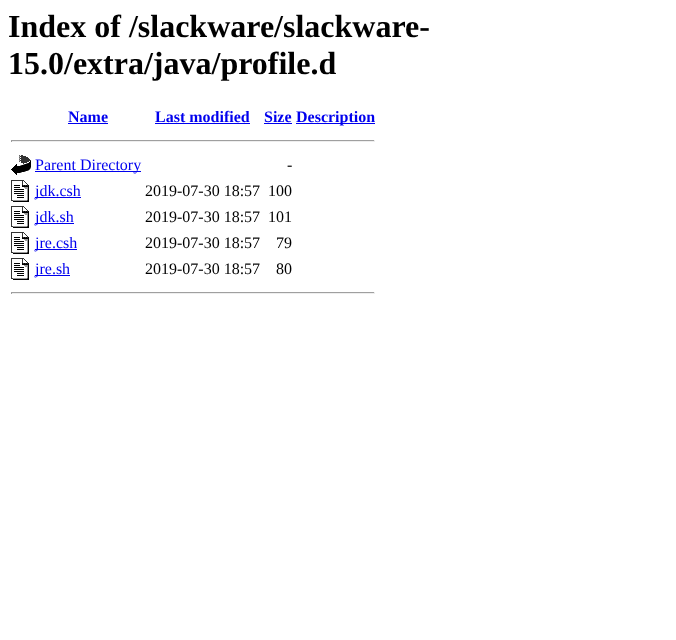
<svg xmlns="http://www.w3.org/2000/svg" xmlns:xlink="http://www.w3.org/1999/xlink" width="676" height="640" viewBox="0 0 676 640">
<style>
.cls-1{font:bold 32px Liberation Serif;fill:#000000}
.cls-2{font:bold 16px Liberation Serif;fill:#0000ee}
.cls-3{font:16px Liberation Serif;fill:#0000ee}
.cls-4{font:16px Liberation Serif;fill:#000000}
</style>
<rect width="100%" height="100%" fill="#ffffff"/>
<rect fill="#0000ee" x="68" y="123" width="40" height="1"/>
<rect fill="#0000ee" x="155" y="123" width="95" height="1"/>
<rect fill="#0000ee" x="264" y="123" width="28" height="1"/>
<rect fill="#0000ee" x="296" y="123" width="79" height="1"/>
<rect fill="#9f9f9f" x="11" y="140" width="364" height="1"/>
<rect fill="#eeeeee" x="374" y="140" width="1" height="2"/>
<rect fill="#eeeeee" x="11" y="141" width="364" height="1"/>
<rect fill="#9f9f9f" x="11" y="140" width="1" height="2"/>
<image xlink:href="image0.png" x="11" y="155" width="20" height="20"/>
<rect fill="#0000ee" x="35" y="171" width="106" height="1"/>
<image xlink:href="image1.png" x="11" y="180" width="18" height="22"/>
<rect fill="#0000ee" x="35" y="197" width="46" height="1"/>
<image xlink:href="image1.png" x="11" y="206" width="18" height="22"/>
<rect fill="#0000ee" x="35" y="223" width="39" height="1"/>
<image xlink:href="image1.png" x="11" y="232" width="18" height="22"/>
<rect fill="#0000ee" x="35" y="249" width="42" height="1"/>
<image xlink:href="image1.png" x="11" y="258" width="18" height="22"/>
<rect fill="#0000ee" x="35" y="275" width="35" height="1"/>
<rect fill="#9f9f9f" x="11" y="292" width="364" height="1"/>
<rect fill="#eeeeee" x="374" y="292" width="1" height="2"/>
<rect fill="#eeeeee" x="11" y="293" width="364" height="1"/>
<rect fill="#9f9f9f" x="11" y="292" width="1" height="2"/>
<text class="cls-1"><tspan x="8" y="37">Index of /slackware/slackware-</tspan><tspan x="8" y="74">15.0/extra/java/profile.d</tspan></text>
<text class="cls-2" x="68" y="122">Name</text>
<text class="cls-2" x="155" y="122">Last modified</text>
<text class="cls-2" x="264" y="122">Size</text>
<text class="cls-2" x="296" y="122">Description</text>
<text class="cls-3" x="35" y="170">Parent Directory</text>
<text class="cls-4" x="287" y="170">-</text>
<text class="cls-3" x="35" y="196">jdk.csh</text>
<text class="cls-4" x="145" y="196">2019-07-30 18:57</text>
<text class="cls-4" x="268" y="196">100</text>
<text class="cls-3" x="35" y="222">jdk.sh</text>
<text class="cls-4" x="145" y="222">2019-07-30 18:57</text>
<text class="cls-4" x="268" y="222">101</text>
<text class="cls-3" x="35" y="248">jre.csh</text>
<text class="cls-4" x="145" y="248">2019-07-30 18:57</text>
<text class="cls-4" x="276" y="248">79</text>
<text class="cls-3" x="35" y="274">jre.sh</text>
<text class="cls-4" x="145" y="274">2019-07-30 18:57</text>
<text class="cls-4" x="276" y="274">80</text>
</svg>
